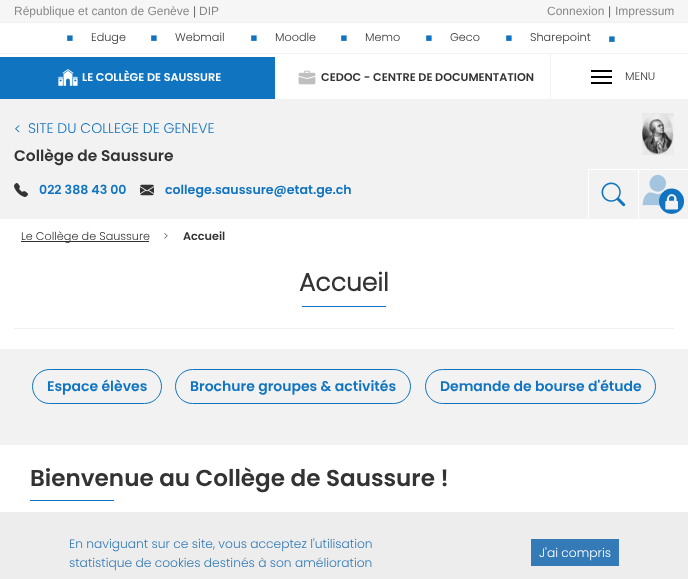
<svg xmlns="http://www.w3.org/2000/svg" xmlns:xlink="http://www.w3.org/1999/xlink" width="688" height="579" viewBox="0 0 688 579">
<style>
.cls-1{font:12px Liberation Sans;fill:#888888}
.cls-2{font:12px Liberation Sans;fill:#646464}
.cls-3{font:22px Liberation Serif;fill:#1174c0}
.cls-4{font:300 11.25px Poppins;fill:#333333}
.cls-5{font:600 11.25px Poppins;fill:#ffffff}
.cls-6{font:600 11.25px Poppins;fill:#333333}
.cls-7{font:300 14px Poppins;fill:#1174c0}
.cls-8{font:600 15.4px Poppins;fill:#333333}
.cls-9{font:600 12.6px Poppins;fill:#1174c0}
.cls-10{font:300 11.25px Poppins;fill:#595c5f}
.cls-11{font:bold 25px Poppins;fill:#333333}
.cls-12{font:600 14px Poppins;fill:#1174c0}
.cls-13{font:600 23.1px Poppins;fill:#333333}
.cls-14{font:300 12.25px Poppins;fill:#337ab7}
.cls-15{font:300 12.25px Poppins;fill:#ffffff}
</style>
<rect width="100%" height="100%" fill="#ffffff"/>
<rect fill="#f6f6f6" x="0" y="0" width="688" height="22"/>
<rect fill="#f2f2f2" x="0" y="22" width="688" height="1"/>
<rect fill="#f2f2f2" x="0" y="53" width="688" height="1"/>
<rect fill="#f2f2f2" x="0" y="99" width="688" height="120"/>
<rect fill="#1174c0" x="0" y="57" width="275" height="42"/>
<image xlink:href="image0.png" x="58" y="69" width="20" height="17"/>
<image xlink:href="image1.png" x="298" y="70" width="18" height="15"/>
<rect fill="#f2f2f2" x="550" y="54" width="1" height="45"/>
<rect fill="#000000" x="591" y="70" width="21" height="2"/>
<rect fill="#000000" x="591" y="76" width="21" height="2"/>
<rect fill="#000000" x="591" y="82" width="21" height="2"/>
<image xlink:href="image2.png" x="14" y="183" width="14" height="14"/>
<image xlink:href="image3.png" x="140" y="184" width="14" height="12"/>
<image xlink:href="image4.png" x="642" y="113" width="32" height="42"/>
<rect fill="#ffffff" x="588" y="169" width="100" height="1"/>
<rect fill="#ffffff" x="588" y="169" width="1" height="50"/>
<image xlink:href="image5.png" x="601" y="182" width="25" height="25"/>
<rect fill="#ffffff" x="638" y="169" width="1" height="50"/>
<image xlink:href="image6.png" x="642" y="174" width="43" height="40"/>
<rect fill="#333333" x="21" y="241" width="128" height="1"/>
<rect fill="#f2f2f2" x="14" y="328" width="660" height="1"/>
<rect fill="#1174c0" x="302" y="306" width="84" height="1"/>
<rect fill="#f2f2f2" x="0" y="349" width="688" height="96"/>
<rect fill="none" stroke="#1174c0" x="32.5" y="369.5" width="129" height="34" rx="17"/>
<rect fill="none" stroke="#1174c0" x="175.5" y="369.5" width="235" height="34" rx="17"/>
<rect fill="none" stroke="#1174c0" x="425.5" y="369.5" width="230" height="34" rx="17"/>
<rect fill="#1174c0" x="30" y="500" width="84" height="1"/>
<rect fill="#ededed" x="0" y="512" width="688" height="67"/>
<rect fill="#337ab7" x="531" y="539" width="88" height="27"/>
<text class="cls-1" x="14" y="15">République et canton de Genève</text>
<text class="cls-2" x="193" y="15">|</text>
<text class="cls-1" x="199" y="15">DIP</text>
<text class="cls-1" x="547" y="15">Connexion</text>
<text class="cls-2" x="608" y="15">|</text>
<text class="cls-1" x="615" y="15">Impressum</text>
<text class="cls-3" x="66" y="45">▪</text>
<text class="cls-4" x="91" y="41">Eduge</text>
<text class="cls-3" x="150" y="45">▪</text>
<text class="cls-4" x="175" y="41">Webmail</text>
<text class="cls-3" x="250" y="45">▪</text>
<text class="cls-4" x="275" y="41">Moodle</text>
<text class="cls-3" x="340" y="45">▪</text>
<text class="cls-4" x="365" y="41">Memo</text>
<text class="cls-3" x="425" y="45">▪</text>
<text class="cls-4" x="450" y="41">Geco</text>
<text class="cls-3" x="505" y="45">▪</text>
<text class="cls-4" x="530" y="41">Sharepoint</text>
<text class="cls-3" x="608" y="46">▪</text>
<text class="cls-5" x="82" y="81">LE COLLÈGE DE SAUSSURE</text>
<text class="cls-6" x="321" y="81">CEDOC - CENTRE DE DOCUMENTATION</text>
<text class="cls-4" x="625" y="80">MENU</text>
<text class="cls-7" x="14" y="134">&lt;</text>
<text class="cls-7" x="28" y="133">SITE DU COLLEGE DE GENEVE</text>
<text class="cls-8" x="14" y="161">Collège de Saussure</text>
<text class="cls-9" x="39" y="194">022 388 43 00</text>
<text class="cls-9" x="165" y="194">college.saussure@etat.ge.ch</text>
<text class="cls-4" x="21" y="240">Le Collège de Saussure</text>
<text class="cls-10" x="163" y="240">&gt;</text>
<text class="cls-6" x="183" y="240">Accueil</text>
<text class="cls-11" x="299" y="291">Accueil</text>
<text class="cls-12" x="47" y="391">Espace élèves</text>
<text class="cls-12" x="190" y="391">Brochure groupes &amp; activités</text>
<text class="cls-12" x="440" y="391">Demande de bourse d'étude</text>
<text class="cls-13" x="30" y="486">Bienvenue au Collège de Saussure !</text>
<text class="cls-14"><tspan x="69" y="548">En naviguant sur ce site, vous acceptez l'utilisation</tspan><tspan x="69" y="567">statistique de cookies destinés à son amélioration</tspan></text>
<text class="cls-15" x="539" y="557">J'ai compris</text>
</svg>
